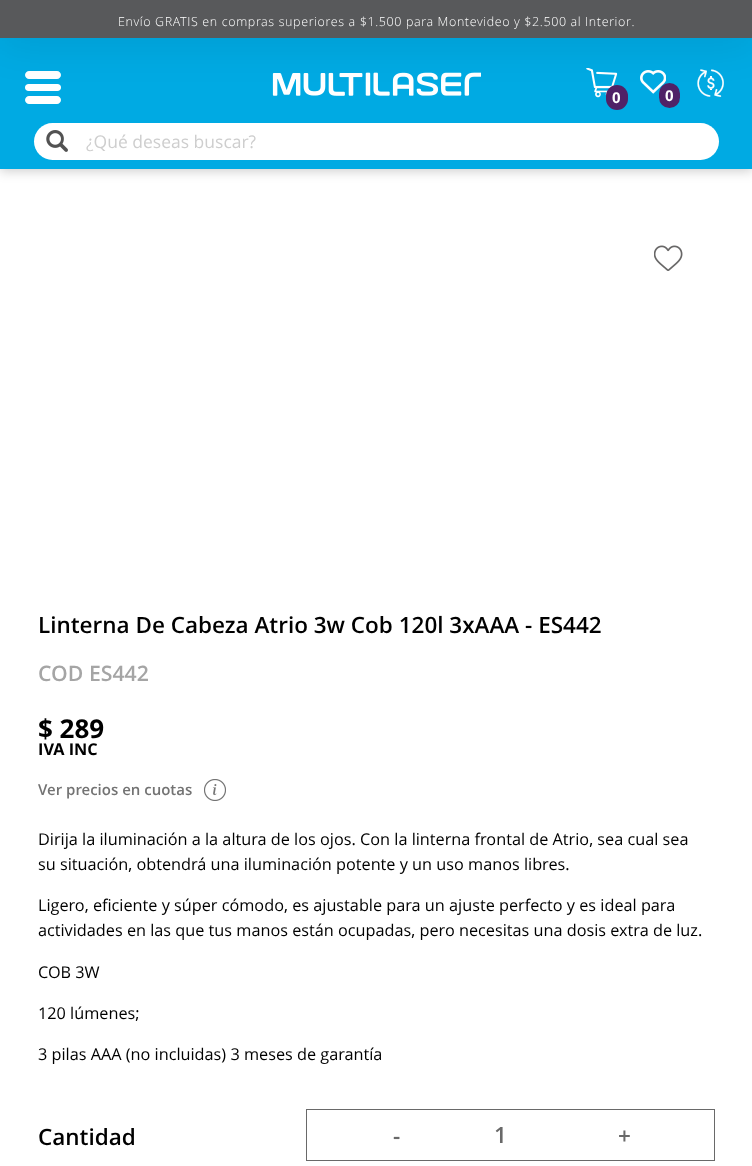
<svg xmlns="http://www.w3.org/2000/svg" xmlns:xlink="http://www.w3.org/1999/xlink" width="752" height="1166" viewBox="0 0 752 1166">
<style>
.cls-1{font:300 12.5px Open Sans;letter-spacing:0.62px;fill:#ffffff}
.cls-2{font:bold 15px Open Sans;fill:#ffffff}
.cls-3{font:17.5px Open Sans;fill:#cecece}
.cls-4{font:600 22.5px Open Sans;fill:#000000}
.cls-5{font:600 21.25px Open Sans;fill:#a5a5a5}
.cls-6{font:bold 26px Open Sans;fill:#000000}
.cls-7{font:bold 16.25px Open Sans;fill:#000000}
.cls-8{font:600 15px Open Sans;fill:#737373}
.cls-9{font:16.25px Open Sans;fill:#000000}
.cls-10{font:600 22.5px Open Sans;fill:#696969}
</style>
<rect width="100%" height="100%" fill="#ffffff"/>
<rect fill="#000000" fill-opacity="0.2" filter="blur(6px)" x="0" y="3" width="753" height="168"/>
<rect fill="#00aae3" x="0" y="38" width="752" height="131"/>
<path fill="#ffffff" d="M29 71H48V79H29C27 79 25 77 25 75C25 73 27 71 29 71Z"/>
<path fill="#ffffff" d="M39 71H57C59 71 61 73 61 75C61 77 59 79 57 79H39Z"/>
<path fill="#ffffff" d="M28.5 84H48V91H28.5C26.5 91 25 89.5 25 87.5C25 85.5 26.5 84 28.5 84Z"/>
<path fill="#ffffff" d="M39 84H57.5C59.5 84 61 85.5 61 87.5C61 89.5 59.5 91 57.5 91H39Z"/>
<path fill="#ffffff" d="M29 96H48V104H29C27 104 25 102 25 100C25 98 27 96 29 96Z"/>
<path fill="#ffffff" d="M39 96H57C59 96 61 98 61 100C61 102 59 104 57 104H39Z"/>
<image xlink:href="image0.png" x="272" y="72" width="209" height="24"/>
<image xlink:href="image1.png" x="586" y="68" width="32" height="30"/>
<rect fill="#502167" x="606" y="85" width="22" height="25" rx="11"/>
<image xlink:href="image2.png" x="640" y="70" width="26" height="24"/>
<rect fill="#502167" x="659" y="83" width="21" height="25" rx="10.5"/>
<image xlink:href="image3.png" x="697" y="69" width="27" height="28"/>
<rect fill="#000000" fill-opacity="0.09" filter="blur(21px)" x="0" y="5" width="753" height="38"/>
<rect fill="#58595b" x="0" y="0" width="752" height="38"/>
<rect fill="#ffffff" x="34" y="123" width="685" height="37" rx="18.5"/>
<image xlink:href="image4.png" x="46" y="130" width="22" height="22"/>
<image xlink:href="image5.png" x="654" y="245" width="29" height="26"/>
<image xlink:href="image6.png" x="204" y="779" width="22" height="22"/>
<rect fill="none" stroke="#696969" x="306.5" y="1109.5" width="408" height="51"/>
<text class="cls-1" x="118" y="26">Envío GRATIS en compras superiores a $1.500 para Montevideo y $2.500 al Interior.</text>
<text class="cls-2" x="612" y="103">0</text>
<text class="cls-2" x="665" y="101">0</text>
<text class="cls-3" x="86" y="148">¿Qué deseas buscar?</text>
<text class="cls-4" x="38" y="633">Linterna De Cabeza Atrio 3w Cob 120l 3xAAA - ES442</text>
<text class="cls-5" x="38" y="681">COD ES442</text>
<text class="cls-6" x="38" y="738">$ 289</text>
<text class="cls-7" x="38" y="755">IVA INC</text>
<text class="cls-8" x="38" y="795">Ver precios en cuotas</text>
<text class="cls-9"><tspan x="38" y="845">Dirija la iluminación a la altura de los ojos. Con la linterna frontal de Atrio, sea cual sea</tspan><tspan x="38" y="870">su situación, obtendrá una iluminación potente y un uso manos libres.</tspan></text>
<text class="cls-9"><tspan x="38" y="911">Ligero, eficiente y súper cómodo, es ajustable para un ajuste perfecto y es ideal para</tspan><tspan x="38" y="936">actividades en las que tus manos están ocupadas, pero necesitas una dosis extra de luz.</tspan></text>
<text class="cls-9" x="38" y="978">COB 3W</text>
<text class="cls-9" x="38" y="1019">120 lúmenes;</text>
<text class="cls-9" x="38" y="1060">3 pilas AAA (no incluidas) 3 meses de garantía</text>
<text class="cls-4" x="38" y="1145">Cantidad</text>
<text class="cls-10" x="393" y="1144">-</text>
<text class="cls-10" x="494" y="1143">1</text>
<text class="cls-10" x="618" y="1144">+</text>
</svg>
